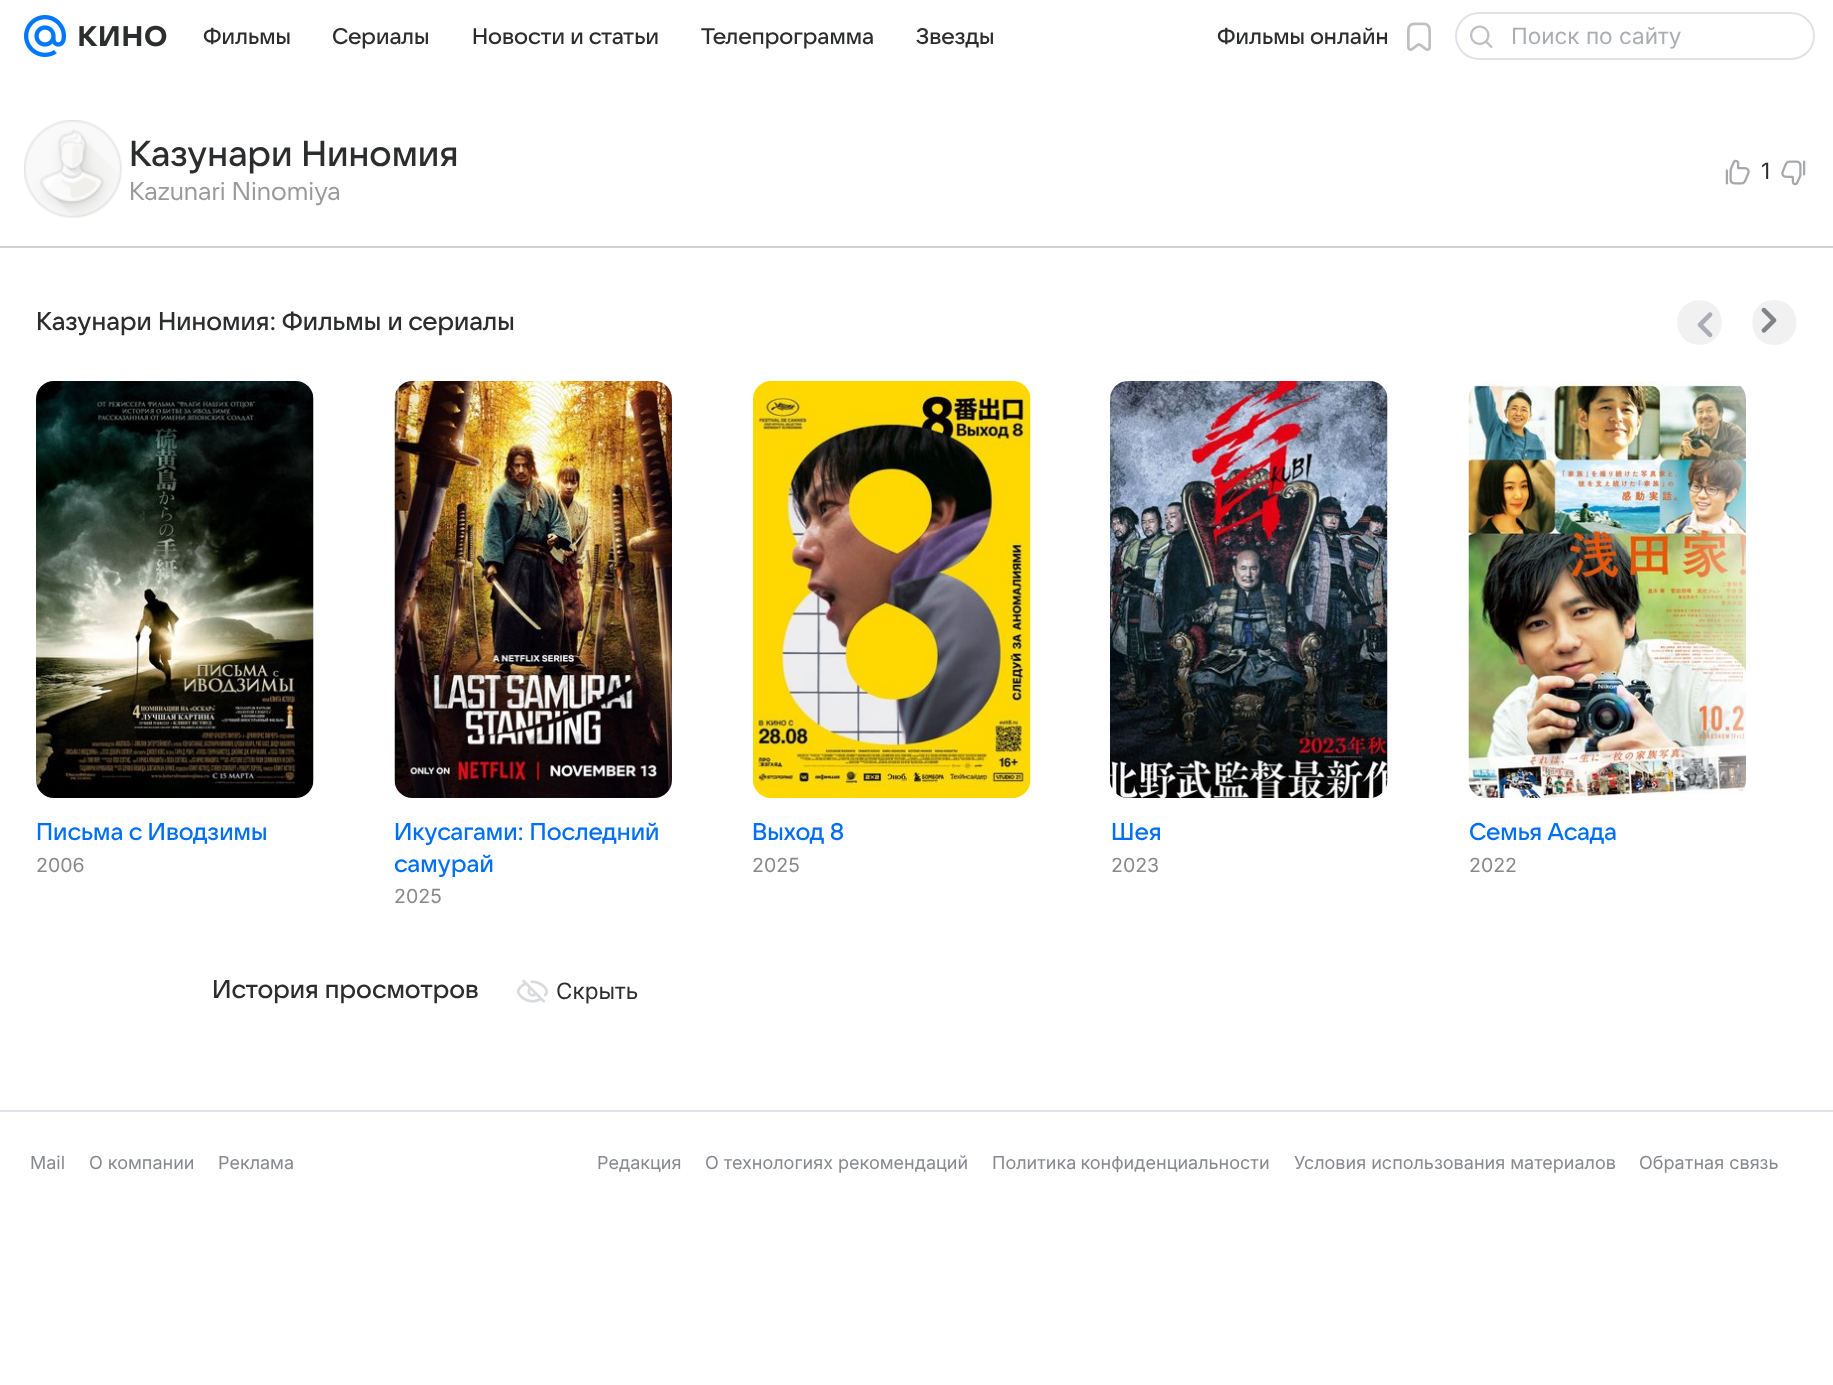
<svg xmlns="http://www.w3.org/2000/svg" xmlns:xlink="http://www.w3.org/1999/xlink" width="1833" height="1385" viewBox="0 0 1833 1385">
<style>
.cls-1{font:500 22.5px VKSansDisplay;fill:#2c2d2e}
.cls-2{font:22.5px Inter;fill:#aaadb3}
.cls-3{font:500 36px VKSansDisplay;fill:#2c2d2e}
.cls-4{font:25.5px VKSansDisplay;fill:#999999}
.cls-5{font:22.5px Inter;fill:#2c2d2e}
.cls-6{font:500 25.5px VKSansDisplay;fill:#2c2d2e}
.cls-7{font:500 24px VKSansDisplay;fill:#0070f0}
.cls-8{font:19.5px Inter;fill:#87898f}
.cls-9{font:18px Inter;fill:#87898f}
</style>
<defs>
<linearGradient id="g1" gradientUnits="userSpaceOnUse" x1="1677" y1="645" x2="1797" y2="645"><stop offset="0" stop-color="#ffffff" stop-opacity="0"/><stop offset="1" stop-color="#ffffff"/></linearGradient>
</defs>
<rect width="100%" height="100%" fill="#ffffff"/>
<image xlink:href="image0.png" x="24" y="15" width="42" height="42"/>
<image xlink:href="image1.png" x="79" y="25" width="88" height="22"/>
<image xlink:href="image2.png" x="1407" y="22" width="24" height="29"/>
<rect fill="none" stroke="#e0e2e8" stroke-width="2" x="1456" y="13" width="358" height="46" rx="23"/>
<image xlink:href="image3.png" x="1470" y="25" width="23" height="23"/>
<rect fill="#d1d1d1" x="0" y="246" width="1833" height="2"/>
<image xlink:href="image4.png" x="24" y="120" width="98" height="98"/>
<image xlink:href="image5.png" x="1725" y="159" width="25" height="26"/>
<image xlink:href="image6.png" x="1781" y="160" width="25" height="26"/>
<circle fill="#f1f1f1" cx="1699.5" cy="322.5" r="22.5"/>
<image xlink:href="image7.png" x="1697" y="312" width="16" height="26"/>
<path fill="#f1f1f1" d="M1774 345C1745 345 1745 300 1774 300C1804 300 1804 345 1774 345Z"/>
<image xlink:href="image8.png" x="1761" y="307" width="16" height="26"/>
<image xlink:href="image13.png" x="1468" y="381" width="278" height="417"/>
<rect fill="url(#g1)" x="1680" y="383" width="66" height="411"/>
<image xlink:href="image9.png" x="36" y="381" width="278" height="417"/>
<image xlink:href="image10.png" x="394" y="381" width="278" height="417"/>
<image xlink:href="image11.png" x="753" y="381" width="278" height="417"/>
<image xlink:href="image12.png" x="1110" y="381" width="278" height="417"/>
<image xlink:href="image14.png" x="517" y="979" width="31" height="24"/>
<rect fill="#e0e2e8" x="0" y="1110" width="1833" height="2"/>
<text class="cls-1" x="203" y="44">Фильмы</text>
<text class="cls-1" x="332" y="44">Сериалы</text>
<text class="cls-1" x="472" y="44">Новости и статьи</text>
<text class="cls-1" x="701" y="44">Телепрограмма</text>
<text class="cls-1" x="916" y="44">Звезды</text>
<text class="cls-1" x="1217" y="44">Фильмы онлайн</text>
<text class="cls-2" x="1511" y="44">Поиск по сайту</text>
<text class="cls-3" x="129" y="166">Казунари Ниномия</text>
<text class="cls-4" x="129" y="200">Kazunari Ninomiya</text>
<text class="cls-5" x="1761" y="179">1</text>
<text class="cls-6" x="36" y="330">Казунари Ниномия: Фильмы и сериалы</text>
<text class="cls-7" x="36" y="840">Письма с Иводзимы</text>
<text class="cls-8" x="36" y="872">2006</text>
<text class="cls-7"><tspan x="394" y="840">Икусагами: Последний</tspan><tspan x="394" y="872">самурай</tspan></text>
<text class="cls-8" x="394" y="903">2025</text>
<text class="cls-7" x="752" y="840">Выход 8</text>
<text class="cls-8" x="752" y="872">2025</text>
<text class="cls-7" x="1111" y="840">Шея</text>
<text class="cls-8" x="1111" y="872">2023</text>
<text class="cls-7" x="1469" y="840">Семья Асада</text>
<text class="cls-8" x="1469" y="872">2022</text>
<text class="cls-6" x="212" y="998">История просмотров</text>
<text class="cls-5" x="556" y="999">Скрыть</text>
<text class="cls-9" x="30" y="1169">Mail</text>
<text class="cls-9" x="89" y="1169">О компании</text>
<text class="cls-9" x="218" y="1169">Реклама</text>
<text class="cls-9" x="597" y="1169">Редакция</text>
<text class="cls-9" x="705" y="1169">О технологиях рекомендаций</text>
<text class="cls-9" x="992" y="1169" word-spacing="-1">Политика конфиденциальности</text>
<text class="cls-9" x="1294" y="1169">Условия использования материалов</text>
<text class="cls-9" x="1639" y="1169">Обратная связь</text>
</svg>
